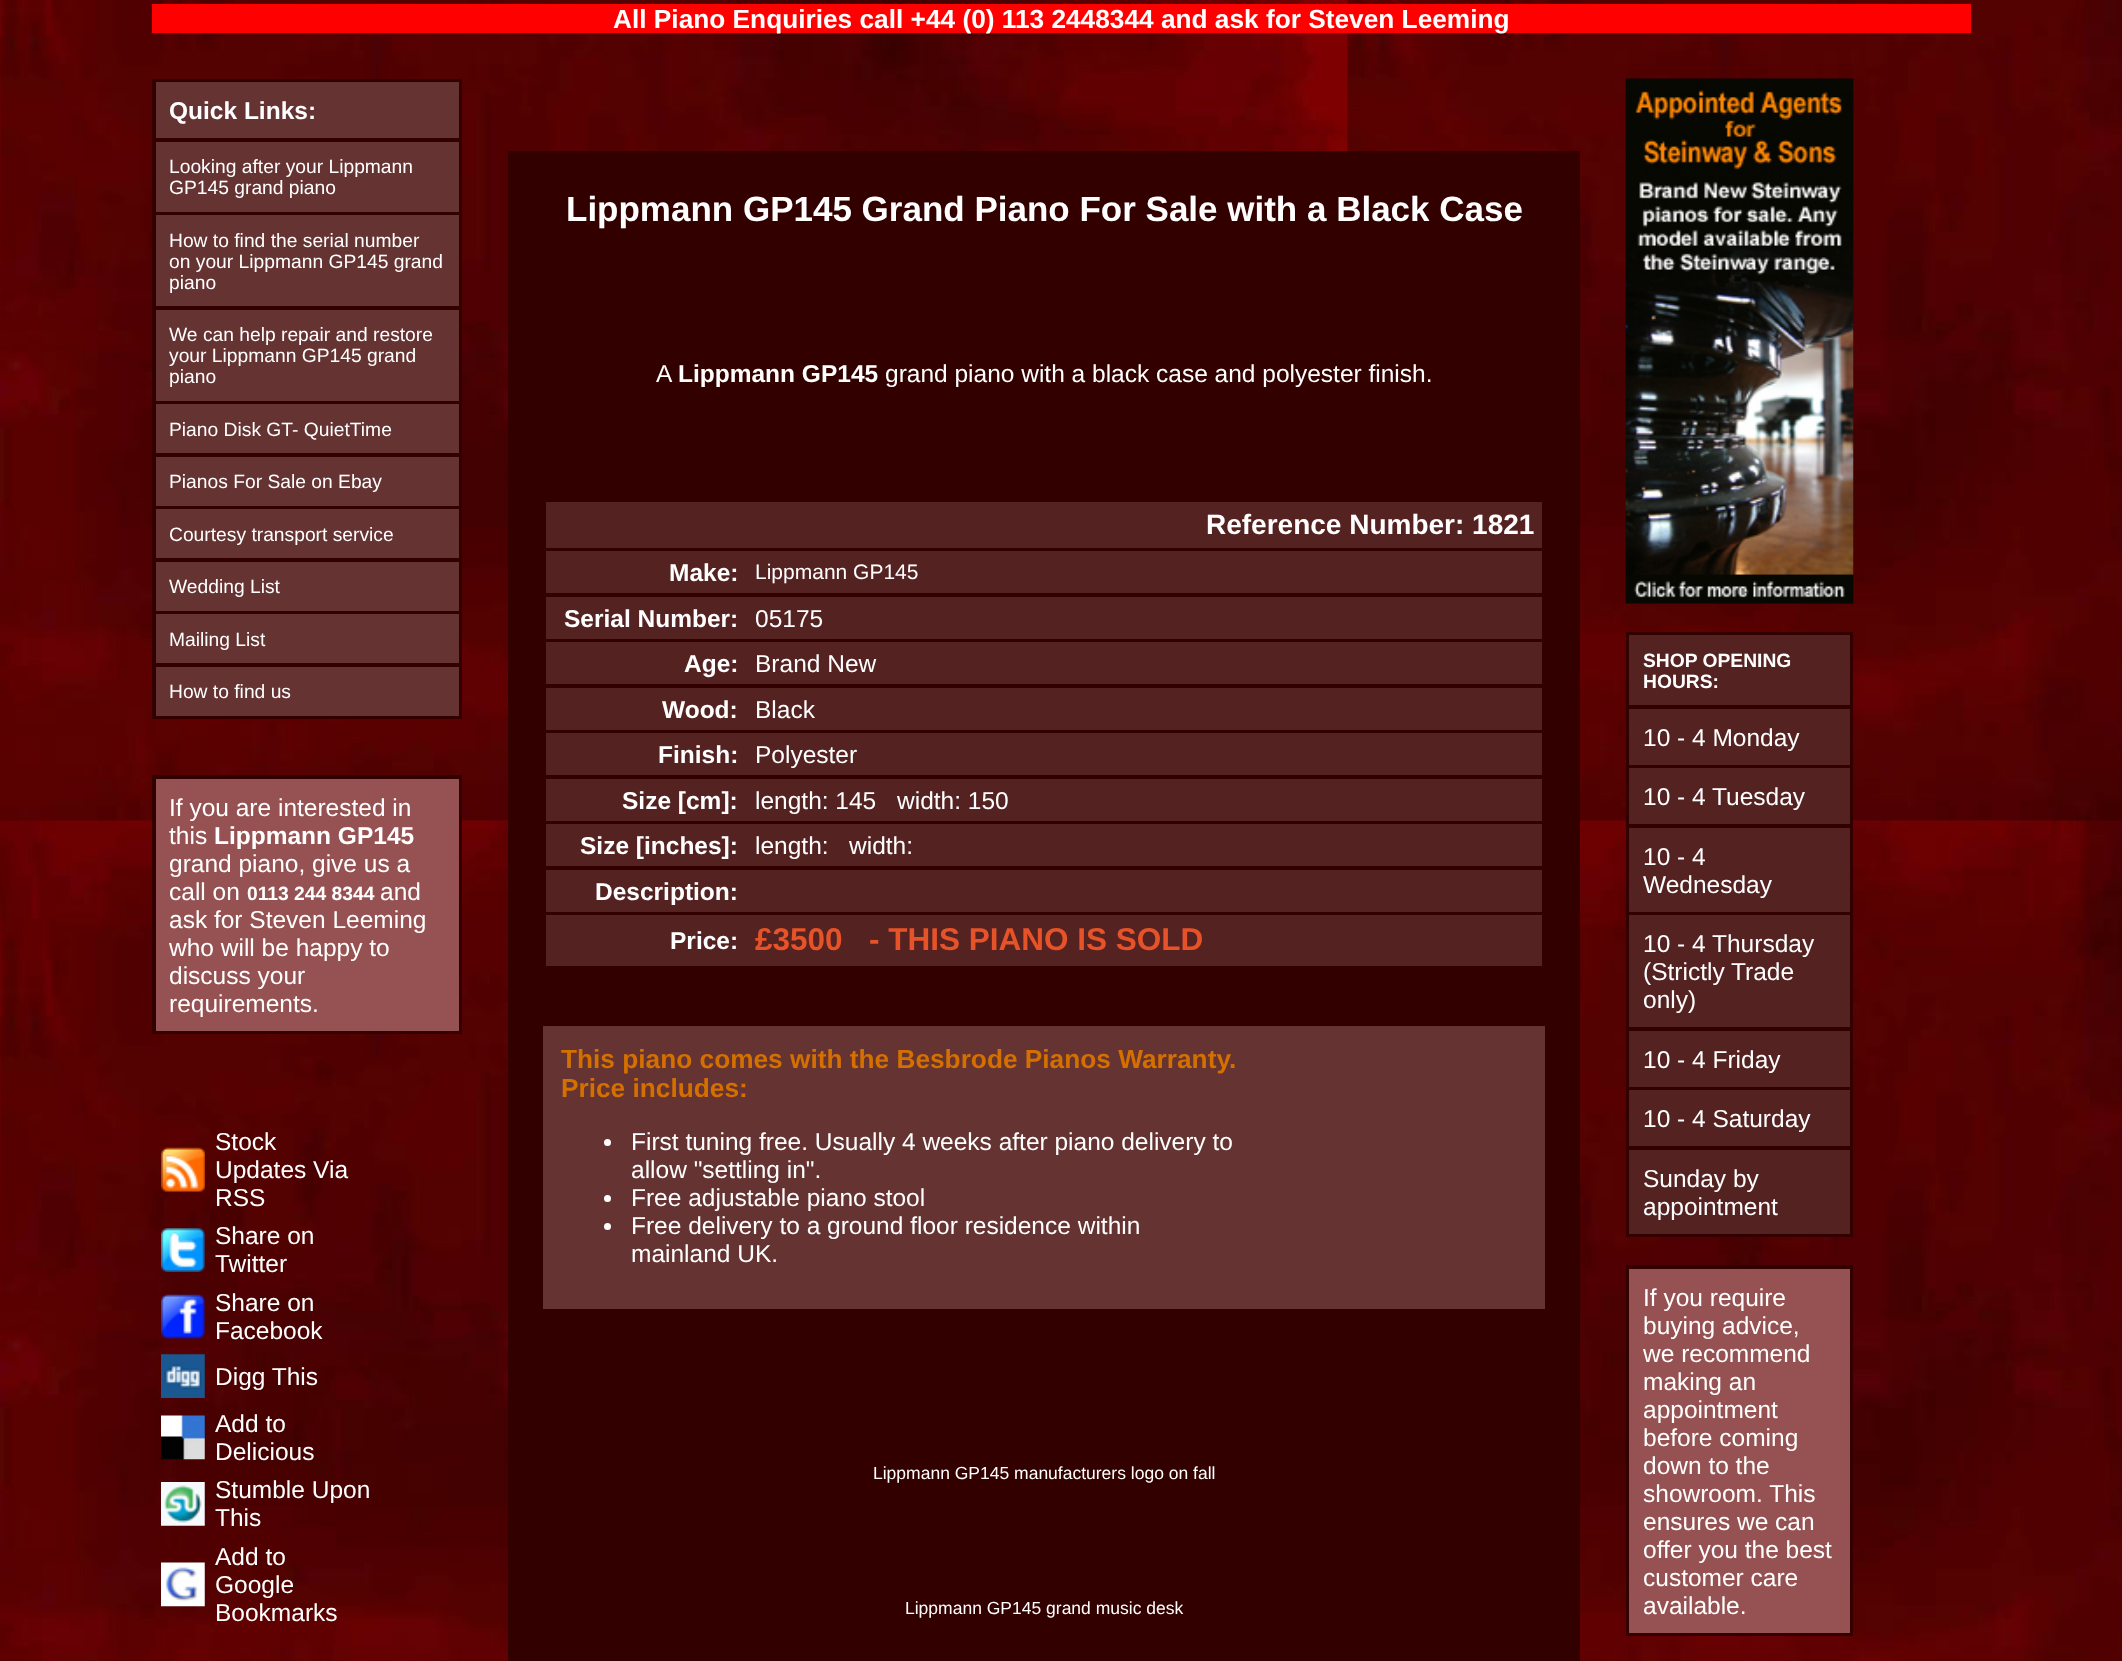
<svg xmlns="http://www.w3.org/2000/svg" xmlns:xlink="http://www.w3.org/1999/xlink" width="2122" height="1661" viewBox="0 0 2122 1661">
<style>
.cls-1{font:bold 26.25px Liberation Sans;fill:#ffffff}
.cls-2{font:bold 24.5px Liberation Sans;fill:#ffffff}
.cls-3{font:19.25px Liberation Sans;fill:#ffffff}
.cls-4{font:24.5px Liberation Sans;fill:#ffffff}
.cls-5{font:bold 19.25px Liberation Sans;fill:#ffffff}
.cls-6{font:bold 35px Liberation Sans;fill:#ffffff}
.cls-7{font:bold 28px Liberation Sans;fill:#ffffff}
.cls-8{font:21px Liberation Sans;fill:#ffffff}
.cls-9{font:bold 31.5px Liberation Sans;fill:#e65328}
.cls-10{font:bold 26.25px Liberation Sans;fill:#d47000}
.cls-11{font:17.5px Liberation Sans;fill:#ffffff}
</style>
<rect width="100%" height="100%" fill="#ffffff"/>
<image xlink:href="image0.png" x="0" y="0" width="2122" height="1661"/>
<rect fill="#ff0000" x="152" y="4" width="1819" height="29"/>
<rect fill="#330000" x="152" y="79" width="310" height="640"/>
<rect fill="#663333" x="156" y="82" width="303" height="56"/>
<rect fill="#663333" x="156" y="142" width="303" height="70"/>
<rect fill="#663333" x="156" y="215" width="303" height="91"/>
<rect fill="#663333" x="156" y="310" width="303" height="91"/>
<rect fill="#663333" x="156" y="404" width="303" height="49"/>
<rect fill="#663333" x="156" y="457" width="303" height="49"/>
<rect fill="#663333" x="156" y="509" width="303" height="49"/>
<rect fill="#663333" x="156" y="562" width="303" height="49"/>
<rect fill="#663333" x="156" y="614" width="303" height="49"/>
<rect fill="#663333" x="156" y="667" width="303" height="49"/>
<rect fill="#330000" x="152" y="775" width="310" height="259"/>
<rect fill="#965252" x="156" y="779" width="303" height="252"/>
<image xlink:href="image1.png" x="161" y="1147" width="44" height="45"/>
<image xlink:href="image2.png" x="161" y="1228" width="44" height="44"/>
<image xlink:href="image3.png" x="161" y="1294" width="44" height="45"/>
<image xlink:href="image4.png" x="161" y="1354" width="44" height="44"/>
<image xlink:href="image5.png" x="161" y="1415" width="44" height="45"/>
<image xlink:href="image6.png" x="161" y="1482" width="44" height="44"/>
<image xlink:href="image7.png" x="161" y="1562" width="44" height="45"/>
<rect fill="#330000" x="508" y="151" width="1072" height="1510"/>
<rect fill="#552222" x="546" y="502" width="996" height="46"/>
<rect fill="#552222" x="546" y="551" width="996" height="42"/>
<rect fill="#552222" x="546" y="597" width="996" height="42"/>
<rect fill="#552222" x="546" y="642" width="996" height="42"/>
<rect fill="#552222" x="546" y="688" width="996" height="42"/>
<rect fill="#552222" x="546" y="733" width="996" height="42"/>
<rect fill="#552222" x="546" y="779" width="996" height="42"/>
<rect fill="#552222" x="546" y="824" width="996" height="42"/>
<rect fill="#552222" x="546" y="870" width="996" height="42"/>
<rect fill="#552222" x="546" y="915" width="996" height="51"/>
<rect fill="#663333" x="543" y="1026" width="1002" height="283"/>
<circle fill="#ffffff" cx="607.5" cy="1142.5" r="3.5"/>
<circle fill="#ffffff" cx="607.5" cy="1198.5" r="3.5"/>
<circle fill="#ffffff" cx="607.5" cy="1226.5" r="3.5"/>
<image xlink:href="image8.png" x="1625" y="78" width="229" height="526"/>
<rect fill="#330000" x="1626" y="632" width="227" height="605"/>
<rect fill="#552222" x="1629" y="635" width="221" height="70"/>
<rect fill="#552222" x="1629" y="709" width="221" height="56"/>
<rect fill="#552222" x="1629" y="768" width="221" height="56"/>
<rect fill="#552222" x="1629" y="828" width="221" height="84"/>
<rect fill="#552222" x="1629" y="915" width="221" height="112"/>
<rect fill="#552222" x="1629" y="1031" width="221" height="56"/>
<rect fill="#552222" x="1629" y="1090" width="221" height="56"/>
<rect fill="#552222" x="1629" y="1150" width="221" height="84"/>
<rect fill="#330000" x="1626" y="1265" width="227" height="371"/>
<rect fill="#965252" x="1629" y="1269" width="221" height="364"/>
<text class="cls-1" x="613" y="28">All Piano Enquiries call +44 (0) 113 2448344 and ask for Steven Leeming</text>
<text class="cls-2" x="169" y="119">Quick Links:</text>
<text class="cls-3"><tspan x="169" y="173">Looking after your Lippmann</tspan><tspan x="169" y="194">GP145 grand piano</tspan></text>
<text class="cls-3"><tspan x="169" y="247">How to find the serial number</tspan><tspan x="169" y="268">on your Lippmann GP145 grand</tspan><tspan x="169" y="289">piano</tspan></text>
<text class="cls-3"><tspan x="169" y="341">We can help repair and restore</tspan><tspan x="169" y="362">your Lippmann GP145 grand</tspan><tspan x="169" y="383">piano</tspan></text>
<text class="cls-3" x="169" y="436">Piano Disk GT- QuietTime</text>
<text class="cls-3" x="169" y="488">Pianos For Sale on Ebay</text>
<text class="cls-3" x="169" y="541">Courtesy transport service</text>
<text class="cls-3" x="169" y="593">Wedding List</text>
<text class="cls-3" x="169" y="646">Mailing List</text>
<text class="cls-3" x="169" y="698">How to find us</text>
<text class="cls-4"><tspan x="169" y="816">If you are interested in</tspan><tspan x="169" y="844">this</tspan></text>
<text class="cls-2" x="214" y="844">Lippmann GP145</text>
<text class="cls-4"><tspan x="169" y="872">grand piano, give us a</tspan><tspan x="169" y="900">call on</tspan></text>
<text class="cls-5" x="247" y="900">0113 244 8344</text>
<text class="cls-4" x="380" y="900">and</text>
<text class="cls-4"><tspan x="169" y="928">ask for Steven Leeming</tspan><tspan x="169" y="956">who will be happy to</tspan><tspan x="169" y="984">discuss your</tspan><tspan x="169" y="1012">requirements.</tspan></text>
<text class="cls-4"><tspan x="215" y="1150">Stock</tspan><tspan x="215" y="1178">Updates Via</tspan><tspan x="215" y="1206">RSS</tspan><tspan x="215" y="1244">Share on</tspan><tspan x="215" y="1272">Twitter</tspan><tspan x="215" y="1311">Share on</tspan><tspan x="215" y="1339">Facebook</tspan><tspan x="215" y="1385">Digg This</tspan><tspan x="215" y="1432">Add to</tspan><tspan x="215" y="1460">Delicious</tspan><tspan x="215" y="1498">Stumble Upon</tspan><tspan x="215" y="1526">This</tspan><tspan x="215" y="1565">Add to</tspan><tspan x="215" y="1593">Google</tspan><tspan x="215" y="1621">Bookmarks</tspan></text>
<text class="cls-6" x="566" y="221">Lippmann GP145 Grand Piano For Sale with a Black Case</text>
<text class="cls-4" x="656" y="382">A</text>
<text class="cls-2" x="678" y="382">Lippmann GP145</text>
<text class="cls-4" x="885" y="382">grand piano with a black case and polyester finish.</text>
<text class="cls-7" x="1206" y="534">Reference Number: 1821</text>
<text class="cls-2" x="669" y="581">Make:</text>
<text class="cls-8" x="755" y="579">Lippmann GP145</text>
<text class="cls-2" x="564" y="627">Serial Number:</text>
<text class="cls-4" x="755" y="627">05175</text>
<text class="cls-2" x="684" y="672">Age:</text>
<text class="cls-4" x="755" y="672">Brand New</text>
<text class="cls-2" x="662" y="718">Wood:</text>
<text class="cls-4" x="755" y="718">Black</text>
<text class="cls-2" x="658" y="763">Finish:</text>
<text class="cls-4" x="755" y="763">Polyester</text>
<text class="cls-2" x="622" y="809">Size [cm]:</text>
<text class="cls-4" x="755" y="809">length: 145</text>
<text class="cls-4" x="897" y="809">width: 150</text>
<text class="cls-2" x="580" y="854">Size [inches]:</text>
<text class="cls-4" x="755" y="854">length:</text>
<text class="cls-4" x="849" y="854">width:</text>
<text class="cls-2" x="595" y="900">Description:</text>
<text class="cls-2" x="670" y="949">Price:</text>
<text class="cls-9" x="755" y="950">£3500</text>
<text class="cls-9" x="869" y="950">- THIS PIANO IS SOLD</text>
<text class="cls-10"><tspan x="561" y="1068">This piano comes with the Besbrode Pianos Warranty.</tspan><tspan x="561" y="1097">Price includes:</tspan></text>
<text class="cls-4"><tspan x="631" y="1150">First tuning free. Usually 4 weeks after piano delivery to</tspan><tspan x="631" y="1178">allow "settling in".</tspan><tspan x="631" y="1206">Free adjustable piano stool</tspan><tspan x="631" y="1234">Free delivery to a ground floor residence within</tspan><tspan x="631" y="1262">mainland UK.</tspan></text>
<text class="cls-11" x="873" y="1479">Lippmann GP145 manufacturers logo on fall</text>
<text class="cls-11" x="905" y="1614">Lippmann GP145 grand music desk</text>
<text class="cls-5"><tspan x="1643" y="667">SHOP OPENING</tspan><tspan x="1643" y="688">HOURS:</tspan></text>
<text class="cls-4" x="1643" y="746">10 - 4 Monday</text>
<text class="cls-4" x="1643" y="805">10 - 4 Tuesday</text>
<text class="cls-4"><tspan x="1643" y="865">10 - 4</tspan><tspan x="1643" y="893">Wednesday</tspan></text>
<text class="cls-4"><tspan x="1643" y="952">10 - 4 Thursday</tspan><tspan x="1643" y="980">(Strictly Trade</tspan><tspan x="1643" y="1008">only)</tspan></text>
<text class="cls-4" x="1643" y="1068">10 - 4 Friday</text>
<text class="cls-4" x="1643" y="1127">10 - 4 Saturday</text>
<text class="cls-4"><tspan x="1643" y="1187">Sunday by</tspan><tspan x="1643" y="1215">appointment</tspan></text>
<text class="cls-4"><tspan x="1643" y="1306">If you require</tspan><tspan x="1643" y="1334">buying advice,</tspan><tspan x="1643" y="1362">we recommend</tspan><tspan x="1643" y="1390">making an</tspan><tspan x="1643" y="1418">appointment</tspan><tspan x="1643" y="1446">before coming</tspan><tspan x="1643" y="1474">down to the</tspan><tspan x="1643" y="1502">showroom. This</tspan><tspan x="1643" y="1530">ensures we can</tspan><tspan x="1643" y="1558">offer you the best</tspan><tspan x="1643" y="1586">customer care</tspan><tspan x="1643" y="1614">available.</tspan></text>
</svg>
